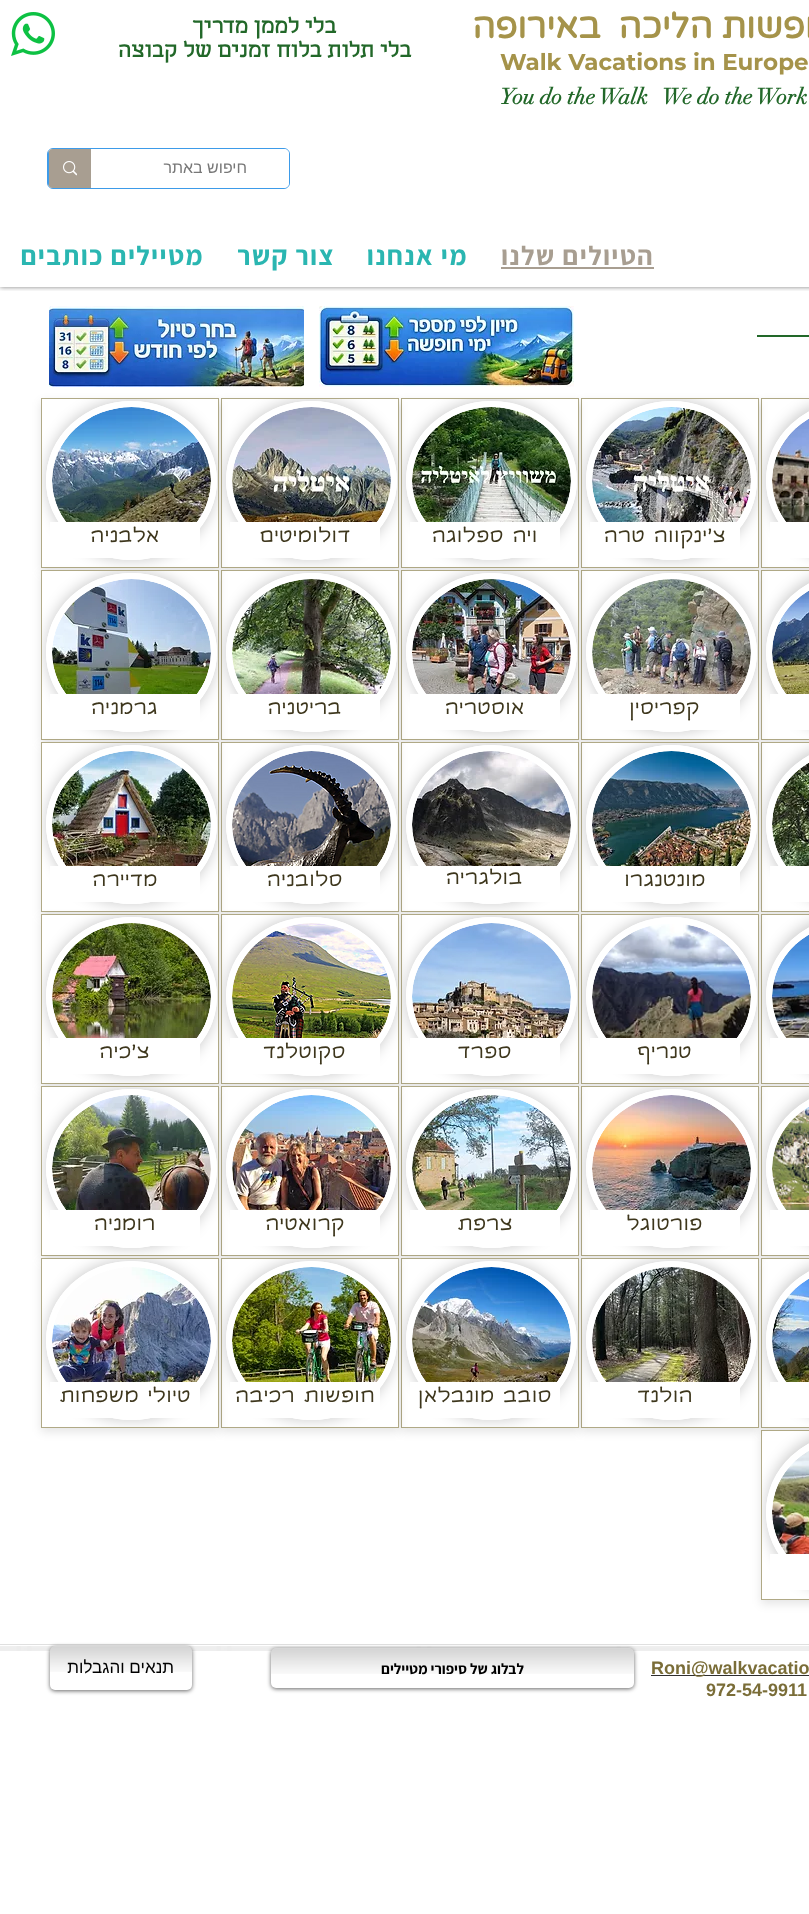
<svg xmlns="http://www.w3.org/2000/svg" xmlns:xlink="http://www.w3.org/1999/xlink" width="809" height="1914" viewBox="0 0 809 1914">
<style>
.cls-1{font:bold 35px Varela Round;direction:rtl;fill:#a5934a}
.cls-2{font:bold 23px Montserrat;fill:#a5934a}
.cls-3{font:bold 22px didot;fill:#226829}
.cls-4{font:bold 23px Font;direction:rtl;fill:#226829}
.cls-5{font:16px Liberation Sans;direction:rtl;fill:#787878}
.cls-6{font:bold 27px Assistant;letter-spacing:1.4px;direction:rtl;fill:#a89e91}
.cls-7{font:bold 27px Assistant;letter-spacing:1.4px;direction:rtl;fill:#2ab6b1}
.cls-8{font:bold 20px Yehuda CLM;letter-spacing:1.6px;direction:rtl;fill:#3d361c}
.cls-9{font:bold 18px Liberation Sans;fill:#7a6d38}
.cls-10{font:bold 15px Assistant;direction:rtl;fill:#000000}
.cls-11{font:17px Liberation Sans;direction:rtl;fill:#000000}
</style>
<defs>
<clipPath id="clip1"><rect x="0" y="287" width="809" height="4"/></clipPath>
<clipPath id="clip2"><rect x="48" y="149" width="241" height="39" rx="5"/></clipPath>
<clipPath id="clip3"><path d="M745 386H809V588H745ZM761 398H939V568H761Z" clip-rule="evenodd"/></clipPath>
<clipPath id="clip4"><rect x="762" y="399" width="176" height="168"/></clipPath>
<clipPath id="clip5"><rect x="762" y="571" width="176" height="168"/></clipPath>
<clipPath id="clip6"><rect x="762" y="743" width="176" height="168"/></clipPath>
<clipPath id="clip7"><rect x="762" y="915" width="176" height="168"/></clipPath>
<clipPath id="clip8"><rect x="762" y="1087" width="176" height="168"/></clipPath>
<clipPath id="clip9"><rect x="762" y="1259" width="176" height="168"/></clipPath>
<clipPath id="clip10"><rect x="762" y="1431" width="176" height="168"/></clipPath>
<clipPath id="clip11"><rect x="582" y="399" width="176" height="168"/></clipPath>
<clipPath id="clip12"><rect x="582" y="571" width="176" height="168"/></clipPath>
<clipPath id="clip13"><rect x="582" y="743" width="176" height="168"/></clipPath>
<clipPath id="clip14"><rect x="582" y="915" width="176" height="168"/></clipPath>
<clipPath id="clip15"><rect x="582" y="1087" width="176" height="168"/></clipPath>
<clipPath id="clip16"><rect x="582" y="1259" width="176" height="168"/></clipPath>
<clipPath id="clip17"><rect x="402" y="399" width="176" height="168"/></clipPath>
<clipPath id="clip18"><rect x="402" y="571" width="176" height="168"/></clipPath>
<clipPath id="clip19"><rect x="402" y="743" width="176" height="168"/></clipPath>
<clipPath id="clip20"><rect x="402" y="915" width="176" height="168"/></clipPath>
<clipPath id="clip21"><rect x="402" y="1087" width="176" height="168"/></clipPath>
<clipPath id="clip22"><rect x="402" y="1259" width="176" height="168"/></clipPath>
<clipPath id="clip23"><rect x="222" y="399" width="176" height="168"/></clipPath>
<clipPath id="clip24"><rect x="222" y="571" width="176" height="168"/></clipPath>
<clipPath id="clip25"><rect x="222" y="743" width="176" height="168"/></clipPath>
<clipPath id="clip26"><rect x="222" y="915" width="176" height="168"/></clipPath>
<clipPath id="clip27"><rect x="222" y="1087" width="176" height="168"/></clipPath>
<clipPath id="clip28"><rect x="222" y="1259" width="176" height="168"/></clipPath>
<clipPath id="clip29"><rect x="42" y="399" width="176" height="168"/></clipPath>
<clipPath id="clip30"><rect x="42" y="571" width="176" height="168"/></clipPath>
<clipPath id="clip31"><rect x="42" y="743" width="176" height="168"/></clipPath>
<clipPath id="clip32"><rect x="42" y="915" width="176" height="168"/></clipPath>
<clipPath id="clip33"><rect x="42" y="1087" width="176" height="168"/></clipPath>
<clipPath id="clip34"><rect x="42" y="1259" width="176" height="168"/></clipPath>
</defs>
<rect width="100%" height="100%" fill="#ffffff"/>
<g clip-path="url(#clip1)">
<rect fill="#000000" fill-opacity="0.5" filter="blur(2.5px)" x="0" y="0" width="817" height="287"/>
</g>
<image xlink:href="image0.png" x="11" y="12" width="44" height="44"/>
<rect fill="none" stroke="#3d9be9" x="47.5" y="148.5" width="242" height="40" rx="5.5"/>
<rect fill="#ffffff" x="48" y="149" width="241" height="39" rx="5"/>
<path fill="#a89e91" d="M53 149H91V188H53C50 188 48 186 48 183V154C48 151 50 149 53 149Z"/>
<g clip-path="url(#clip2)">
<rect fill="#3d9be9" x="48" y="149" width="1" height="39"/>
</g>
<image xlink:href="image1.png" x="63" y="161" width="14" height="15"/>
<rect fill="#a89e91" x="501" y="267" width="153" height="2"/>
<rect fill="#226829" x="757" y="335" width="52" height="2"/>
<image xlink:href="image2.png" x="319" y="306" width="255" height="81"/>
<image xlink:href="image3.png" x="49" y="306" width="255" height="81"/>
<g clip-path="url(#clip3)">
<rect fill="#000000" fill-opacity="0.1" filter="blur(5px)" x="761" y="402" width="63" height="170"/>
</g>
<rect fill="none" stroke="#b0a986" x="761.5" y="398.5" width="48" height="169"/>
<g clip-path="url(#clip4)">
<rect fill="#000000" fill-opacity="0.2" filter="blur(7px)" x="766" y="401" width="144" height="159" rx="79.5"/>
</g>
<ellipse fill="#ffffff" cx="851.5" cy="480.5" rx="85.5" ry="79.5"/>
<path fill="none" stroke="#ffffff" stroke-width="6" d="M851.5 404C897 404 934 438.5 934 480.5C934 522.5 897 557 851.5 557C806 557 769 522.5 769 480.5C769 438.5 806 404 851.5 404Z"/>
<image xlink:href="image4.png" x="772" y="419" width="37" height="103"/>
<rect fill="#ffffff" x="770" y="522" width="39" height="36"/>
<rect fill="#000000" fill-opacity="0.1" filter="blur(5px)" x="761" y="574" width="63" height="170"/>
<rect fill="none" stroke="#b0a986" x="761.5" y="570.5" width="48" height="169"/>
<rect fill="#ffffff" x="762" y="571" width="47" height="168"/>
<g clip-path="url(#clip5)">
<rect fill="#000000" fill-opacity="0.2" filter="blur(7px)" x="766" y="573" width="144" height="159" rx="79.5"/>
</g>
<ellipse fill="#ffffff" cx="851.5" cy="652.5" rx="85.5" ry="79.5"/>
<path fill="none" stroke="#ffffff" stroke-width="6" d="M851.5 576C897 576 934 610.5 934 652.5C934 694.5 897 729 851.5 729C806 729 769 694.5 769 652.5C769 610.5 806 576 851.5 576Z"/>
<image xlink:href="image5.png" x="772" y="591" width="37" height="103"/>
<rect fill="#ffffff" x="770" y="694" width="39" height="36"/>
<rect fill="#000000" fill-opacity="0.1" filter="blur(5px)" x="761" y="746" width="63" height="170"/>
<rect fill="none" stroke="#b0a986" x="761.5" y="742.5" width="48" height="169"/>
<rect fill="#ffffff" x="762" y="743" width="47" height="168"/>
<g clip-path="url(#clip6)">
<rect fill="#000000" fill-opacity="0.2" filter="blur(7px)" x="766" y="745" width="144" height="159" rx="79.5"/>
</g>
<ellipse fill="#ffffff" cx="851.5" cy="824.5" rx="85.5" ry="79.5"/>
<path fill="none" stroke="#ffffff" stroke-width="6" d="M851.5 748C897 748 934 782.5 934 824.5C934 866.5 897 901 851.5 901C806 901 769 866.5 769 824.5C769 782.5 806 748 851.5 748Z"/>
<image xlink:href="image6.png" x="772" y="763" width="37" height="103"/>
<rect fill="#ffffff" x="770" y="866" width="39" height="36"/>
<rect fill="#000000" fill-opacity="0.1" filter="blur(5px)" x="761" y="918" width="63" height="170"/>
<rect fill="none" stroke="#b0a986" x="761.5" y="914.5" width="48" height="169"/>
<rect fill="#ffffff" x="762" y="915" width="47" height="168"/>
<g clip-path="url(#clip7)">
<rect fill="#000000" fill-opacity="0.2" filter="blur(7px)" x="766" y="917" width="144" height="159" rx="79.5"/>
</g>
<ellipse fill="#ffffff" cx="851.5" cy="996.5" rx="85.5" ry="79.5"/>
<path fill="none" stroke="#ffffff" stroke-width="6" d="M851.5 920C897 920 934 954.5 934 996.5C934 1038.5 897 1073 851.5 1073C806 1073 769 1038.5 769 996.5C769 954.5 806 920 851.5 920Z"/>
<image xlink:href="image7.png" x="772" y="935" width="37" height="103"/>
<rect fill="#ffffff" x="770" y="1038" width="39" height="36"/>
<rect fill="#000000" fill-opacity="0.1" filter="blur(5px)" x="761" y="1090" width="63" height="170"/>
<rect fill="none" stroke="#b0a986" x="761.5" y="1086.5" width="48" height="169"/>
<rect fill="#ffffff" x="762" y="1087" width="47" height="168"/>
<g clip-path="url(#clip8)">
<rect fill="#000000" fill-opacity="0.2" filter="blur(7px)" x="766" y="1089" width="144" height="159" rx="79.5"/>
</g>
<ellipse fill="#ffffff" cx="851.5" cy="1168.5" rx="85.5" ry="79.5"/>
<path fill="none" stroke="#ffffff" stroke-width="6" d="M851.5 1092C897 1092 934 1126.5 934 1168.5C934 1210.5 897 1245 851.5 1245C806 1245 769 1210.5 769 1168.5C769 1126.5 806 1092 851.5 1092Z"/>
<image xlink:href="image8.png" x="772" y="1107" width="37" height="103"/>
<rect fill="#ffffff" x="770" y="1210" width="39" height="36"/>
<rect fill="#000000" fill-opacity="0.1" filter="blur(5px)" x="761" y="1262" width="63" height="170"/>
<rect fill="none" stroke="#b0a986" x="761.5" y="1258.5" width="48" height="169"/>
<rect fill="#ffffff" x="762" y="1259" width="47" height="168"/>
<g clip-path="url(#clip9)">
<rect fill="#000000" fill-opacity="0.2" filter="blur(7px)" x="766" y="1261" width="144" height="159" rx="79.5"/>
</g>
<ellipse fill="#ffffff" cx="851.5" cy="1340.5" rx="85.5" ry="79.5"/>
<path fill="none" stroke="#ffffff" stroke-width="6" d="M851.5 1264C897 1264 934 1298.5 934 1340.5C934 1382.5 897 1417 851.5 1417C806 1417 769 1382.5 769 1340.5C769 1298.5 806 1264 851.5 1264Z"/>
<image xlink:href="image9.png" x="772" y="1279" width="37" height="103"/>
<rect fill="#ffffff" x="770" y="1382" width="39" height="36"/>
<rect fill="#000000" fill-opacity="0.1" filter="blur(5px)" x="761" y="1434" width="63" height="170"/>
<rect fill="none" stroke="#b0a986" x="761.5" y="1430.5" width="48" height="169"/>
<rect fill="#ffffff" x="762" y="1431" width="47" height="168"/>
<g clip-path="url(#clip10)">
<rect fill="#000000" fill-opacity="0.2" filter="blur(7px)" x="766" y="1433" width="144" height="159" rx="79.5"/>
</g>
<ellipse fill="#ffffff" cx="851.5" cy="1512.5" rx="85.5" ry="79.5"/>
<path fill="none" stroke="#ffffff" stroke-width="6" d="M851.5 1436C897 1436 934 1470.5 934 1512.5C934 1554.5 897 1589 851.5 1589C806 1589 769 1554.5 769 1512.5C769 1470.5 806 1436 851.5 1436Z"/>
<image xlink:href="image10.png" x="772" y="1451" width="37" height="103"/>
<rect fill="#ffffff" x="770" y="1554" width="39" height="36"/>
<rect fill="#000000" fill-opacity="0.1" filter="blur(5px)" x="581" y="402" width="178" height="170"/>
<rect fill="none" stroke="#b0a986" x="581.5" y="398.5" width="177" height="169"/>
<rect fill="#ffffff" x="582" y="399" width="176" height="168"/>
<g clip-path="url(#clip11)">
<rect fill="#000000" fill-opacity="0.2" filter="blur(7px)" x="586" y="401" width="171" height="159" rx="79.5"/>
</g>
<ellipse fill="#ffffff" cx="671.5" cy="480.5" rx="85.5" ry="79.5"/>
<path fill="none" stroke="#ffffff" stroke-width="6" d="M671.5 404C717 404 754 438.5 754 480.5C754 522.5 717 557 671.5 557C626 557 589 522.5 589 480.5C589 438.5 626 404 671.5 404Z"/>
<image xlink:href="image11.png" x="592" y="407" width="159" height="115"/>
<rect fill="#ffffff" x="590" y="522" width="150" height="36"/>
<rect fill="#000000" fill-opacity="0.1" filter="blur(5px)" x="581" y="574" width="178" height="170"/>
<rect fill="none" stroke="#b0a986" x="581.5" y="570.5" width="177" height="169"/>
<rect fill="#ffffff" x="582" y="571" width="176" height="168"/>
<g clip-path="url(#clip12)">
<rect fill="#000000" fill-opacity="0.2" filter="blur(7px)" x="586" y="573" width="171" height="159" rx="79.5"/>
</g>
<ellipse fill="#ffffff" cx="671.5" cy="652.5" rx="85.5" ry="79.5"/>
<path fill="none" stroke="#ffffff" stroke-width="6" d="M671.5 576C717 576 754 610.5 754 652.5C754 694.5 717 729 671.5 729C626 729 589 694.5 589 652.5C589 610.5 626 576 671.5 576Z"/>
<image xlink:href="image12.png" x="592" y="579" width="159" height="115"/>
<rect fill="#ffffff" x="590" y="694" width="150" height="36"/>
<rect fill="#000000" fill-opacity="0.1" filter="blur(5px)" x="581" y="746" width="178" height="170"/>
<rect fill="none" stroke="#b0a986" x="581.5" y="742.5" width="177" height="169"/>
<rect fill="#ffffff" x="582" y="743" width="176" height="168"/>
<g clip-path="url(#clip13)">
<rect fill="#000000" fill-opacity="0.2" filter="blur(7px)" x="586" y="745" width="171" height="159" rx="79.5"/>
</g>
<ellipse fill="#ffffff" cx="671.5" cy="824.5" rx="85.5" ry="79.5"/>
<path fill="none" stroke="#ffffff" stroke-width="6" d="M671.5 748C717 748 754 782.5 754 824.5C754 866.5 717 901 671.5 901C626 901 589 866.5 589 824.5C589 782.5 626 748 671.5 748Z"/>
<image xlink:href="image13.png" x="592" y="751" width="159" height="115"/>
<rect fill="#ffffff" x="590" y="866" width="150" height="36"/>
<rect fill="#000000" fill-opacity="0.1" filter="blur(5px)" x="581" y="918" width="178" height="170"/>
<rect fill="none" stroke="#b0a986" x="581.5" y="914.5" width="177" height="169"/>
<rect fill="#ffffff" x="582" y="915" width="176" height="168"/>
<g clip-path="url(#clip14)">
<rect fill="#000000" fill-opacity="0.2" filter="blur(7px)" x="586" y="917" width="171" height="159" rx="79.5"/>
</g>
<ellipse fill="#ffffff" cx="671.5" cy="996.5" rx="85.5" ry="79.5"/>
<path fill="none" stroke="#ffffff" stroke-width="6" d="M671.5 920C717 920 754 954.5 754 996.5C754 1038.5 717 1073 671.5 1073C626 1073 589 1038.5 589 996.5C589 954.5 626 920 671.5 920Z"/>
<image xlink:href="image14.png" x="592" y="924" width="159" height="114"/>
<rect fill="#ffffff" x="590" y="1038" width="150" height="36"/>
<rect fill="#000000" fill-opacity="0.1" filter="blur(5px)" x="581" y="1090" width="178" height="170"/>
<rect fill="none" stroke="#b0a986" x="581.5" y="1086.5" width="177" height="169"/>
<rect fill="#ffffff" x="582" y="1087" width="176" height="168"/>
<g clip-path="url(#clip15)">
<rect fill="#000000" fill-opacity="0.2" filter="blur(7px)" x="586" y="1089" width="171" height="159" rx="79.5"/>
</g>
<ellipse fill="#ffffff" cx="671.5" cy="1168.5" rx="85.5" ry="79.5"/>
<path fill="none" stroke="#ffffff" stroke-width="6" d="M671.5 1092C717 1092 754 1126.5 754 1168.5C754 1210.5 717 1245 671.5 1245C626 1245 589 1210.5 589 1168.5C589 1126.5 626 1092 671.5 1092Z"/>
<image xlink:href="image15.png" x="592" y="1095" width="159" height="115"/>
<rect fill="#ffffff" x="590" y="1210" width="150" height="36"/>
<rect fill="#000000" fill-opacity="0.1" filter="blur(5px)" x="581" y="1262" width="178" height="170"/>
<rect fill="none" stroke="#b0a986" x="581.5" y="1258.5" width="177" height="169"/>
<rect fill="#ffffff" x="582" y="1259" width="176" height="168"/>
<g clip-path="url(#clip16)">
<rect fill="#000000" fill-opacity="0.2" filter="blur(7px)" x="586" y="1261" width="171" height="159" rx="79.5"/>
</g>
<ellipse fill="#ffffff" cx="671.5" cy="1340.5" rx="85.5" ry="79.5"/>
<path fill="none" stroke="#ffffff" stroke-width="6" d="M671.5 1264C717 1264 754 1298.5 754 1340.5C754 1382.5 717 1417 671.5 1417C626 1417 589 1382.5 589 1340.5C589 1298.5 626 1264 671.5 1264Z"/>
<image xlink:href="image16.png" x="592" y="1267" width="159" height="115"/>
<rect fill="#ffffff" x="590" y="1382" width="150" height="36"/>
<rect fill="#000000" fill-opacity="0.1" filter="blur(5px)" x="401" y="402" width="178" height="170"/>
<rect fill="none" stroke="#b0a986" x="401.5" y="398.5" width="177" height="169"/>
<rect fill="#ffffff" x="402" y="399" width="176" height="168"/>
<g clip-path="url(#clip17)">
<rect fill="#000000" fill-opacity="0.2" filter="blur(7px)" x="406" y="401" width="171" height="159" rx="79.5"/>
</g>
<ellipse fill="#ffffff" cx="491.5" cy="480.5" rx="85.5" ry="79.5"/>
<path fill="none" stroke="#ffffff" stroke-width="6" d="M491.5 404C537 404 574 438.5 574 480.5C574 522.5 537 557 491.5 557C446 557 409 522.5 409 480.5C409 438.5 446 404 491.5 404Z"/>
<image xlink:href="image17.png" x="412" y="407" width="159" height="115"/>
<rect fill="#ffffff" x="410" y="522" width="150" height="36"/>
<rect fill="#000000" fill-opacity="0.1" filter="blur(5px)" x="401" y="574" width="178" height="170"/>
<rect fill="none" stroke="#b0a986" x="401.5" y="570.5" width="177" height="169"/>
<rect fill="#ffffff" x="402" y="571" width="176" height="168"/>
<g clip-path="url(#clip18)">
<rect fill="#000000" fill-opacity="0.2" filter="blur(7px)" x="406" y="573" width="171" height="159" rx="79.5"/>
</g>
<ellipse fill="#ffffff" cx="491.5" cy="652.5" rx="85.5" ry="79.5"/>
<path fill="none" stroke="#ffffff" stroke-width="6" d="M491.5 576C537 576 574 610.5 574 652.5C574 694.5 537 729 491.5 729C446 729 409 694.5 409 652.5C409 610.5 446 576 491.5 576Z"/>
<image xlink:href="image18.png" x="412" y="579" width="159" height="115"/>
<rect fill="#ffffff" x="410" y="694" width="150" height="36"/>
<rect fill="#000000" fill-opacity="0.1" filter="blur(5px)" x="401" y="746" width="178" height="170"/>
<rect fill="none" stroke="#b0a986" x="401.5" y="742.5" width="177" height="169"/>
<rect fill="#ffffff" x="402" y="743" width="176" height="168"/>
<g clip-path="url(#clip19)">
<rect fill="#000000" fill-opacity="0.2" filter="blur(7px)" x="406" y="745" width="171" height="159" rx="79.5"/>
</g>
<ellipse fill="#ffffff" cx="491.5" cy="824.5" rx="85.5" ry="79.5"/>
<path fill="none" stroke="#ffffff" stroke-width="6" d="M491.5 748C537 748 574 782.5 574 824.5C574 866.5 537 901 491.5 901C446 901 409 866.5 409 824.5C409 782.5 446 748 491.5 748Z"/>
<image xlink:href="image19.png" x="412" y="751" width="159" height="115"/>
<rect fill="#ffffff" x="410" y="866" width="150" height="36"/>
<rect fill="#000000" fill-opacity="0.1" filter="blur(5px)" x="401" y="918" width="178" height="170"/>
<rect fill="none" stroke="#b0a986" x="401.5" y="914.5" width="177" height="169"/>
<rect fill="#ffffff" x="402" y="915" width="176" height="168"/>
<g clip-path="url(#clip20)">
<rect fill="#000000" fill-opacity="0.2" filter="blur(7px)" x="406" y="917" width="171" height="159" rx="79.5"/>
</g>
<ellipse fill="#ffffff" cx="491.5" cy="996.5" rx="85.5" ry="79.5"/>
<path fill="none" stroke="#ffffff" stroke-width="6" d="M491.5 920C537 920 574 954.5 574 996.5C574 1038.5 537 1073 491.5 1073C446 1073 409 1038.5 409 996.5C409 954.5 446 920 491.5 920Z"/>
<image xlink:href="image20.png" x="412" y="923" width="159" height="115"/>
<rect fill="#ffffff" x="410" y="1038" width="150" height="36"/>
<rect fill="#000000" fill-opacity="0.1" filter="blur(5px)" x="401" y="1090" width="178" height="170"/>
<rect fill="none" stroke="#b0a986" x="401.5" y="1086.5" width="177" height="169"/>
<rect fill="#ffffff" x="402" y="1087" width="176" height="168"/>
<g clip-path="url(#clip21)">
<rect fill="#000000" fill-opacity="0.2" filter="blur(7px)" x="406" y="1089" width="171" height="159" rx="79.5"/>
</g>
<ellipse fill="#ffffff" cx="491.5" cy="1168.5" rx="85.5" ry="79.5"/>
<path fill="none" stroke="#ffffff" stroke-width="6" d="M491.5 1092C537 1092 574 1126.5 574 1168.5C574 1210.5 537 1245 491.5 1245C446 1245 409 1210.5 409 1168.5C409 1126.5 446 1092 491.5 1092Z"/>
<image xlink:href="image21.png" x="412" y="1095" width="159" height="115"/>
<rect fill="#ffffff" x="410" y="1210" width="150" height="36"/>
<rect fill="#000000" fill-opacity="0.1" filter="blur(5px)" x="401" y="1262" width="178" height="170"/>
<rect fill="none" stroke="#b0a986" x="401.5" y="1258.5" width="177" height="169"/>
<rect fill="#ffffff" x="402" y="1259" width="176" height="168"/>
<g clip-path="url(#clip22)">
<rect fill="#000000" fill-opacity="0.2" filter="blur(7px)" x="406" y="1261" width="171" height="159" rx="79.5"/>
</g>
<ellipse fill="#ffffff" cx="491.5" cy="1340.5" rx="85.5" ry="79.5"/>
<path fill="none" stroke="#ffffff" stroke-width="6" d="M491.5 1264C537 1264 574 1298.5 574 1340.5C574 1382.5 537 1417 491.5 1417C446 1417 409 1382.5 409 1340.5C409 1298.5 446 1264 491.5 1264Z"/>
<image xlink:href="image22.png" x="412" y="1267" width="159" height="115"/>
<rect fill="#ffffff" x="410" y="1382" width="150" height="36"/>
<rect fill="#000000" fill-opacity="0.1" filter="blur(5px)" x="221" y="402" width="178" height="170"/>
<rect fill="none" stroke="#b0a986" x="221.5" y="398.5" width="177" height="169"/>
<rect fill="#ffffff" x="222" y="399" width="176" height="168"/>
<g clip-path="url(#clip23)">
<rect fill="#000000" fill-opacity="0.2" filter="blur(7px)" x="226" y="401" width="171" height="159" rx="79.5"/>
</g>
<ellipse fill="#ffffff" cx="311.5" cy="480.5" rx="85.5" ry="79.5"/>
<path fill="none" stroke="#ffffff" stroke-width="6" d="M311.5 404C357 404 394 438.5 394 480.5C394 522.5 357 557 311.5 557C266 557 229 522.5 229 480.5C229 438.5 266 404 311.5 404Z"/>
<image xlink:href="image23.png" x="232" y="407" width="159" height="115"/>
<rect fill="#ffffff" x="230" y="522" width="150" height="36"/>
<rect fill="#000000" fill-opacity="0.1" filter="blur(5px)" x="221" y="574" width="178" height="170"/>
<rect fill="none" stroke="#b0a986" x="221.5" y="570.5" width="177" height="169"/>
<rect fill="#ffffff" x="222" y="571" width="176" height="168"/>
<g clip-path="url(#clip24)">
<rect fill="#000000" fill-opacity="0.2" filter="blur(7px)" x="226" y="573" width="171" height="159" rx="79.5"/>
</g>
<ellipse fill="#ffffff" cx="311.5" cy="652.5" rx="85.5" ry="79.5"/>
<path fill="none" stroke="#ffffff" stroke-width="6" d="M311.5 576C357 576 394 610.5 394 652.5C394 694.5 357 729 311.5 729C266 729 229 694.5 229 652.5C229 610.5 266 576 311.5 576Z"/>
<image xlink:href="image24.png" x="232" y="579" width="159" height="115"/>
<rect fill="#ffffff" x="230" y="694" width="150" height="36"/>
<rect fill="#000000" fill-opacity="0.1" filter="blur(5px)" x="221" y="746" width="178" height="170"/>
<rect fill="none" stroke="#b0a986" x="221.5" y="742.5" width="177" height="169"/>
<rect fill="#ffffff" x="222" y="743" width="176" height="168"/>
<g clip-path="url(#clip25)">
<rect fill="#000000" fill-opacity="0.2" filter="blur(7px)" x="226" y="745" width="171" height="159" rx="79.5"/>
</g>
<ellipse fill="#ffffff" cx="311.5" cy="824.5" rx="85.5" ry="79.5"/>
<path fill="none" stroke="#ffffff" stroke-width="6" d="M311.5 748C357 748 394 782.5 394 824.5C394 866.5 357 901 311.5 901C266 901 229 866.5 229 824.5C229 782.5 266 748 311.5 748Z"/>
<image xlink:href="image25.png" x="232" y="751" width="159" height="115"/>
<rect fill="#ffffff" x="230" y="866" width="150" height="36"/>
<rect fill="#000000" fill-opacity="0.1" filter="blur(5px)" x="221" y="918" width="178" height="170"/>
<rect fill="none" stroke="#b0a986" x="221.5" y="914.5" width="177" height="169"/>
<rect fill="#ffffff" x="222" y="915" width="176" height="168"/>
<g clip-path="url(#clip26)">
<rect fill="#000000" fill-opacity="0.2" filter="blur(7px)" x="226" y="917" width="171" height="159" rx="79.5"/>
</g>
<ellipse fill="#ffffff" cx="311.5" cy="996.5" rx="85.5" ry="79.5"/>
<path fill="none" stroke="#ffffff" stroke-width="6" d="M311.5 920C357 920 394 954.5 394 996.5C394 1038.5 357 1073 311.5 1073C266 1073 229 1038.5 229 996.5C229 954.5 266 920 311.5 920Z"/>
<image xlink:href="image26.png" x="232" y="923" width="159" height="115"/>
<rect fill="#ffffff" x="230" y="1038" width="150" height="36"/>
<rect fill="#000000" fill-opacity="0.1" filter="blur(5px)" x="221" y="1090" width="178" height="170"/>
<rect fill="none" stroke="#b0a986" x="221.5" y="1086.5" width="177" height="169"/>
<rect fill="#ffffff" x="222" y="1087" width="176" height="168"/>
<g clip-path="url(#clip27)">
<rect fill="#000000" fill-opacity="0.2" filter="blur(7px)" x="226" y="1089" width="171" height="159" rx="79.5"/>
</g>
<ellipse fill="#ffffff" cx="311.5" cy="1168.5" rx="85.5" ry="79.5"/>
<path fill="none" stroke="#ffffff" stroke-width="6" d="M311.5 1092C357 1092 394 1126.5 394 1168.5C394 1210.5 357 1245 311.5 1245C266 1245 229 1210.5 229 1168.5C229 1126.5 266 1092 311.5 1092Z"/>
<image xlink:href="image27.png" x="232" y="1095" width="159" height="115"/>
<rect fill="#ffffff" x="230" y="1210" width="150" height="36"/>
<rect fill="#000000" fill-opacity="0.1" filter="blur(5px)" x="221" y="1262" width="178" height="170"/>
<rect fill="none" stroke="#b0a986" x="221.5" y="1258.5" width="177" height="169"/>
<rect fill="#ffffff" x="222" y="1259" width="176" height="168"/>
<g clip-path="url(#clip28)">
<rect fill="#000000" fill-opacity="0.2" filter="blur(7px)" x="226" y="1261" width="171" height="159" rx="79.5"/>
</g>
<ellipse fill="#ffffff" cx="311.5" cy="1340.5" rx="85.5" ry="79.5"/>
<path fill="none" stroke="#ffffff" stroke-width="6" d="M311.5 1264C357 1264 394 1298.5 394 1340.5C394 1382.5 357 1417 311.5 1417C266 1417 229 1382.5 229 1340.5C229 1298.5 266 1264 311.5 1264Z"/>
<image xlink:href="image28.png" x="232" y="1267" width="159" height="115"/>
<rect fill="#ffffff" x="230" y="1382" width="150" height="36"/>
<rect fill="#000000" fill-opacity="0.1" filter="blur(5px)" x="41" y="402" width="178" height="170"/>
<rect fill="none" stroke="#b0a986" x="41.5" y="398.5" width="177" height="169"/>
<rect fill="#ffffff" x="42" y="399" width="176" height="168"/>
<g clip-path="url(#clip29)">
<rect fill="#000000" fill-opacity="0.2" filter="blur(7px)" x="46" y="401" width="171" height="159" rx="79.5"/>
</g>
<ellipse fill="#ffffff" cx="131.5" cy="480.5" rx="85.5" ry="79.5"/>
<path fill="none" stroke="#ffffff" stroke-width="6" d="M131.5 404C177 404 214 438.5 214 480.5C214 522.5 177 557 131.5 557C86 557 49 522.5 49 480.5C49 438.5 86 404 131.5 404Z"/>
<image xlink:href="image29.png" x="52" y="407" width="159" height="115"/>
<rect fill="#ffffff" x="50" y="522" width="150" height="36"/>
<rect fill="#000000" fill-opacity="0.1" filter="blur(5px)" x="41" y="574" width="178" height="170"/>
<rect fill="none" stroke="#b0a986" x="41.5" y="570.5" width="177" height="169"/>
<rect fill="#ffffff" x="42" y="571" width="176" height="168"/>
<g clip-path="url(#clip30)">
<rect fill="#000000" fill-opacity="0.2" filter="blur(7px)" x="46" y="573" width="171" height="159" rx="79.5"/>
</g>
<ellipse fill="#ffffff" cx="131.5" cy="652.5" rx="85.5" ry="79.5"/>
<path fill="none" stroke="#ffffff" stroke-width="6" d="M131.5 576C177 576 214 610.5 214 652.5C214 694.5 177 729 131.5 729C86 729 49 694.5 49 652.5C49 610.5 86 576 131.5 576Z"/>
<image xlink:href="image30.png" x="52" y="579" width="159" height="115"/>
<rect fill="#ffffff" x="50" y="694" width="150" height="36"/>
<rect fill="#000000" fill-opacity="0.1" filter="blur(5px)" x="41" y="746" width="178" height="170"/>
<rect fill="none" stroke="#b0a986" x="41.5" y="742.5" width="177" height="169"/>
<rect fill="#ffffff" x="42" y="743" width="176" height="168"/>
<g clip-path="url(#clip31)">
<rect fill="#000000" fill-opacity="0.2" filter="blur(7px)" x="46" y="745" width="171" height="159" rx="79.5"/>
</g>
<ellipse fill="#ffffff" cx="131.5" cy="824.5" rx="85.5" ry="79.5"/>
<path fill="none" stroke="#ffffff" stroke-width="6" d="M131.5 748C177 748 214 782.5 214 824.5C214 866.5 177 901 131.5 901C86 901 49 866.5 49 824.5C49 782.5 86 748 131.5 748Z"/>
<image xlink:href="image31.png" x="52" y="751" width="159" height="115"/>
<rect fill="#ffffff" x="50" y="866" width="150" height="36"/>
<rect fill="#000000" fill-opacity="0.1" filter="blur(5px)" x="41" y="918" width="178" height="170"/>
<rect fill="none" stroke="#b0a986" x="41.5" y="914.5" width="177" height="169"/>
<rect fill="#ffffff" x="42" y="915" width="176" height="168"/>
<g clip-path="url(#clip32)">
<rect fill="#000000" fill-opacity="0.2" filter="blur(7px)" x="46" y="917" width="171" height="159" rx="79.5"/>
</g>
<ellipse fill="#ffffff" cx="131.5" cy="996.5" rx="85.5" ry="79.5"/>
<path fill="none" stroke="#ffffff" stroke-width="6" d="M131.5 920C177 920 214 954.5 214 996.5C214 1038.5 177 1073 131.5 1073C86 1073 49 1038.5 49 996.5C49 954.5 86 920 131.5 920Z"/>
<image xlink:href="image32.png" x="52" y="923" width="159" height="115"/>
<rect fill="#ffffff" x="50" y="1038" width="150" height="36"/>
<rect fill="#000000" fill-opacity="0.1" filter="blur(5px)" x="41" y="1090" width="178" height="170"/>
<rect fill="none" stroke="#b0a986" x="41.5" y="1086.5" width="177" height="169"/>
<rect fill="#ffffff" x="42" y="1087" width="176" height="168"/>
<g clip-path="url(#clip33)">
<rect fill="#000000" fill-opacity="0.2" filter="blur(7px)" x="46" y="1089" width="171" height="159" rx="79.5"/>
</g>
<ellipse fill="#ffffff" cx="131.5" cy="1168.5" rx="85.5" ry="79.5"/>
<path fill="none" stroke="#ffffff" stroke-width="6" d="M131.5 1092C177 1092 214 1126.5 214 1168.5C214 1210.5 177 1245 131.5 1245C86 1245 49 1210.5 49 1168.5C49 1126.5 86 1092 131.5 1092Z"/>
<image xlink:href="image33.png" x="52" y="1095" width="159" height="115"/>
<rect fill="#ffffff" x="50" y="1210" width="150" height="36"/>
<rect fill="#000000" fill-opacity="0.1" filter="blur(5px)" x="41" y="1262" width="178" height="170"/>
<rect fill="none" stroke="#b0a986" x="41.5" y="1258.5" width="177" height="169"/>
<rect fill="#ffffff" x="42" y="1259" width="176" height="168"/>
<g clip-path="url(#clip34)">
<rect fill="#000000" fill-opacity="0.2" filter="blur(7px)" x="46" y="1261" width="171" height="159" rx="79.5"/>
</g>
<ellipse fill="#ffffff" cx="131.5" cy="1340.5" rx="85.5" ry="79.5"/>
<path fill="none" stroke="#ffffff" stroke-width="6" d="M131.5 1264C177 1264 214 1298.5 214 1340.5C214 1382.5 177 1417 131.5 1417C86 1417 49 1382.5 49 1340.5C49 1298.5 86 1264 131.5 1264Z"/>
<image xlink:href="image34.png" x="52" y="1267" width="159" height="115"/>
<rect fill="#ffffff" x="50" y="1382" width="150" height="36"/>
<image xlink:href="image35.png" x="0" y="1644" width="809" height="7"/>
<rect fill="#2f2e2e" x="651" y="1675" width="158" height="1"/>
<rect fill="#000000" fill-opacity="0.6" filter="blur(2px)" x="271" y="1649" width="363" height="40" rx="5"/>
<rect fill="#ffffff" x="271" y="1648" width="363" height="40" rx="5"/>
<image xlink:href="image36.png" x="271" y="1648" width="363" height="26"/>
<rect fill="#000000" fill-opacity="0.6" filter="blur(2px)" x="50" y="1647" width="142" height="44" rx="5"/>
<rect fill="#ffffff" x="50" y="1646" width="142" height="44" rx="5"/>
<image xlink:href="image37.png" x="50" y="1646" width="142" height="26"/>
<text class="cls-1" xml:space="preserve" x="838" y="38">חופשות הליכה  באירופה</text>
<text class="cls-2" x="500" y="70">Walk Vacations in Europe</text>
<text class="cls-3" xml:space="preserve" x="500" y="104">You do the Walk   We do the Work</text>
<text class="cls-4" x="336" y="33">בלי לממן מדריך</text>
<text class="cls-4" x="411" y="57">בלי תלות בלוח זמנים של קבוצה</text>
<text class="cls-5" x="247" y="173">חיפוש באתר</text>
<text class="cls-6" x="654" y="265">הטיולים שלנו</text>
<text class="cls-7" x="468" y="265">מי אנחנו</text>
<text class="cls-7" x="335" y="265">צור קשר</text>
<text class="cls-7" x="204" y="265">מטיילים כותבים</text>
<text class="cls-8" x="726" y="542">צ'ינקווה טרה</text>
<text class="cls-8" x="700" y="714">קפריסין</text>
<text class="cls-8" x="706" y="886">מונטנגרו</text>
<text class="cls-8" x="692" y="1058">טנריף</text>
<text class="cls-8" x="703" y="1230">פורטוגל</text>
<text class="cls-8" x="693" y="1402">הולנד</text>
<text class="cls-8" x="538" y="542">ויה ספלוגה</text>
<text class="cls-8" x="525" y="714">אוסטריה</text>
<text class="cls-8" x="523" y="884">בולגריה</text>
<text class="cls-8" x="512" y="1058">ספרד</text>
<text class="cls-8" x="513" y="1230">צרפת</text>
<text class="cls-8" x="552" y="1402">סובב מונבלאן</text>
<text class="cls-8" x="351" y="542">דולומיטים</text>
<text class="cls-8" x="342" y="714">בריטניה</text>
<text class="cls-8" x="343" y="886">סלובניה</text>
<text class="cls-8" x="346" y="1058">סקוטלנד</text>
<text class="cls-8" x="345" y="1230">קרואטיה</text>
<text class="cls-8" x="375" y="1402">חופשות רכיבה</text>
<text class="cls-8" x="160" y="542">אלבניה</text>
<text class="cls-8" x="158" y="714">גרמניה</text>
<text class="cls-8" x="158" y="886">מדיירה</text>
<text class="cls-8" x="150" y="1058">צ'כיה</text>
<text class="cls-8" x="156" y="1230">רומניה</text>
<text class="cls-8" x="191" y="1402">טיולי משפחות</text>
<text class="cls-9" x="651" y="1674">Roni@walkvacatio</text>
<text class="cls-9" x="706" y="1696">972-54-9911</text>
<text class="cls-10" x="524" y="1674">לבלוג של סיפורי מטיילים</text>
<text class="cls-11" x="174" y="1673">תנאים והגבלות</text>
</svg>
